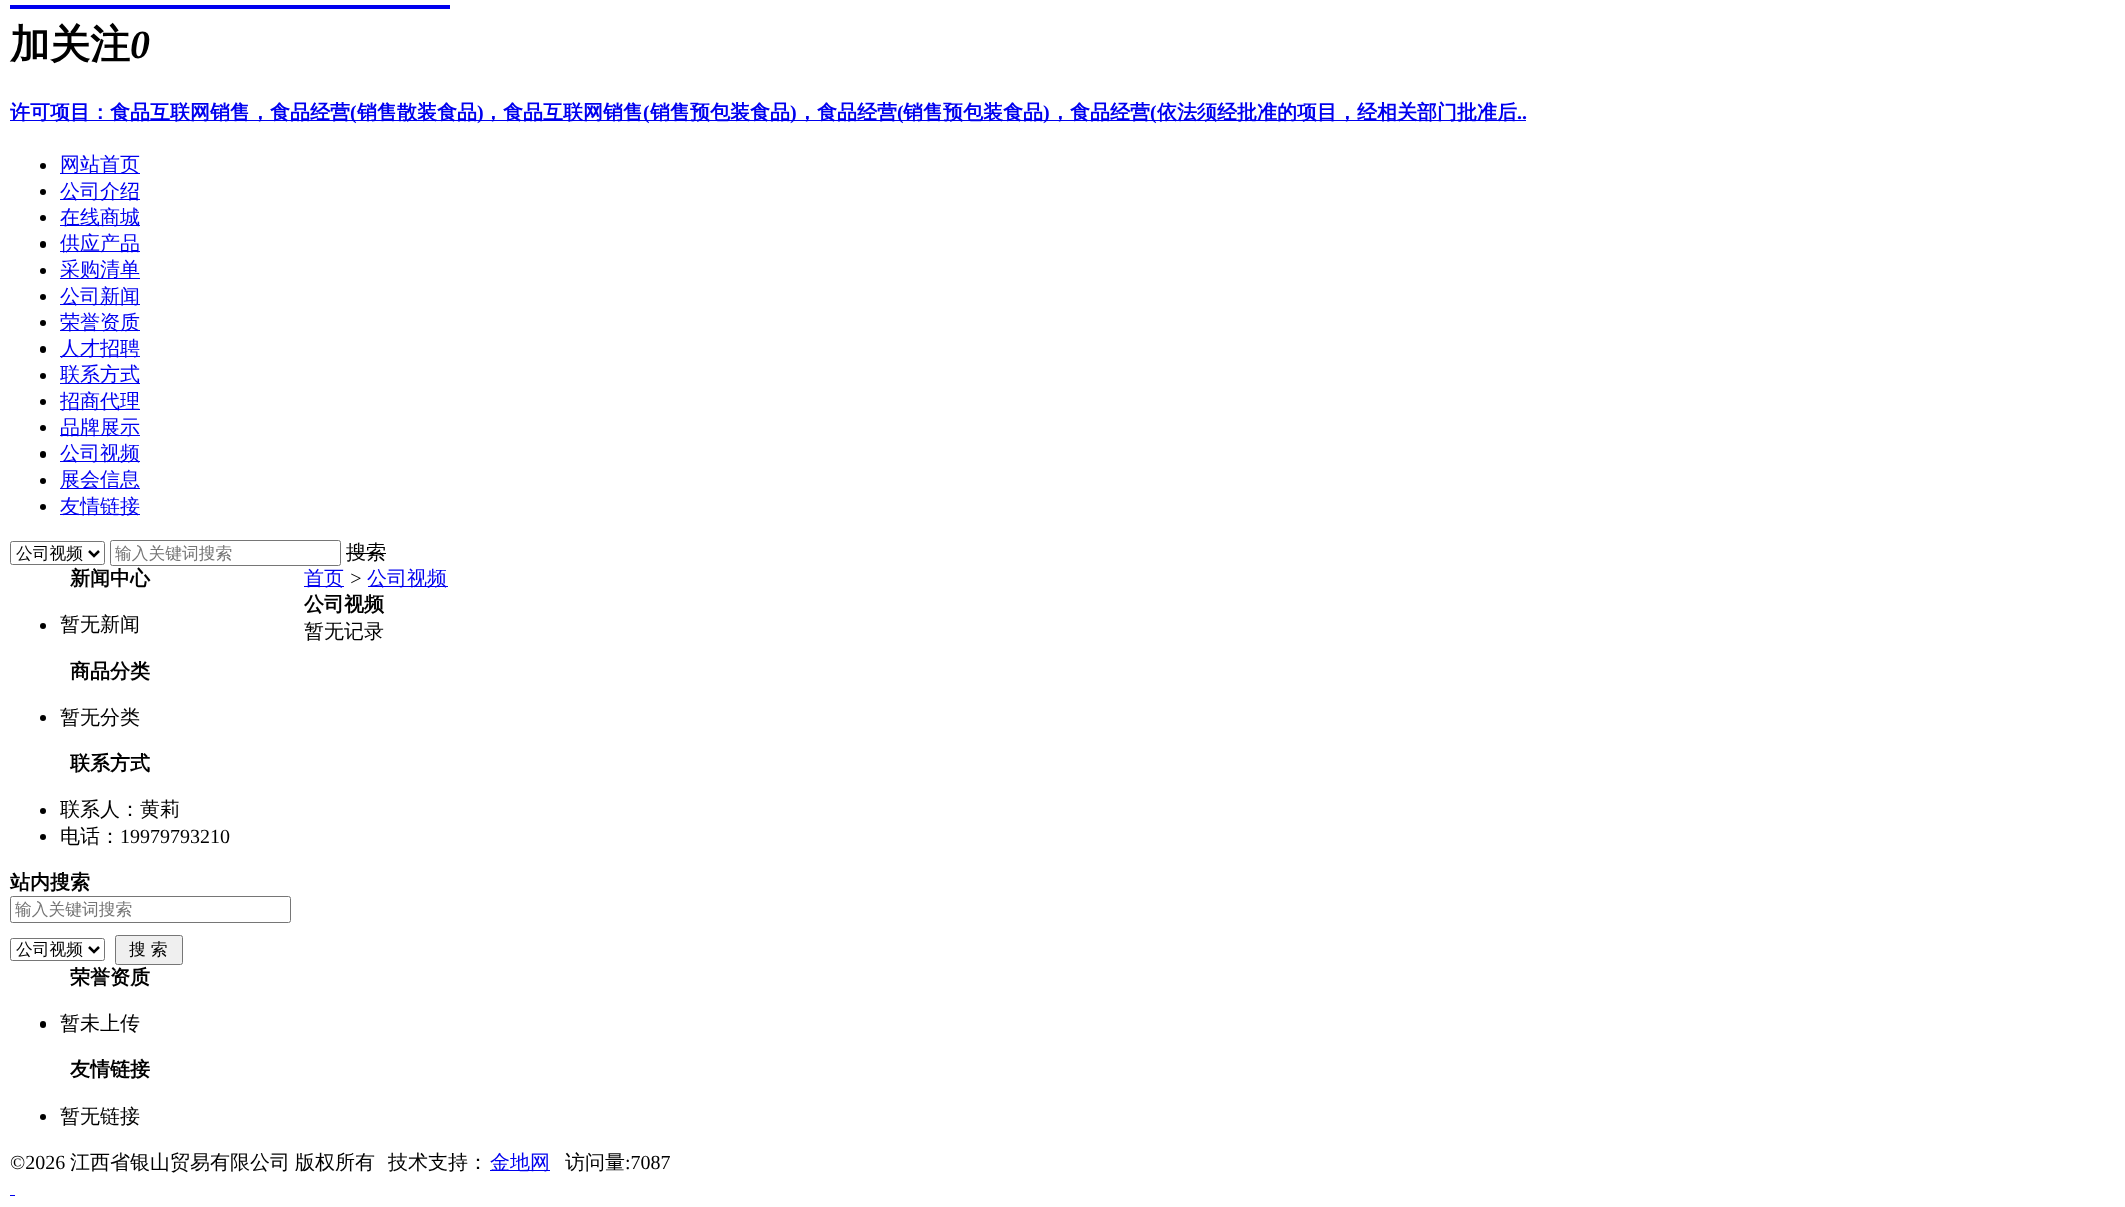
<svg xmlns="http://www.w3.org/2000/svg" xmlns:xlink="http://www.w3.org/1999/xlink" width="2125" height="1207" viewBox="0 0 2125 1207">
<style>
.cls-1{font:bold 40px WenQuanYi Zen Hei;fill:#000000}
.cls-2{font:italic bold 40px Liberation Serif;fill:#000000}
.cls-3{font:bold 20px WenQuanYi Zen Hei;fill:#0000ee}
.cls-4{font:bold 20px Liberation Serif;fill:#0000ee}
.cls-5{font:500 20px WenQuanYi Zen Hei;fill:#0000ee}
.cls-6{font:500 16.75px WenQuanYi Zen Hei;fill:#000000}
.cls-7{font:500 16.75px WenQuanYi Zen Hei;fill:#757575}
.cls-8{font:500 20px WenQuanYi Zen Hei;fill:#000000}
.cls-9{font:bold 20px WenQuanYi Zen Hei;fill:#000000}
.cls-10{font:20px Liberation Serif;fill:#000000}
.cls-11{font:italic 20px Liberation Serif;fill:#000000}
</style>
<rect width="100%" height="100%" fill="#ffffff"/>
<rect fill="#0000ee" x="10" y="5" width="440" height="4"/>
<rect fill="#0000ee" x="10" y="120" width="1516" height="1"/>
<circle fill="#000000" cx="43" cy="166" r="3"/>
<rect fill="#0000ee" x="60" y="173" width="80" height="1"/>
<circle fill="#000000" cx="43" cy="192" r="3"/>
<rect fill="#0000ee" x="60" y="199" width="80" height="1"/>
<circle fill="#000000" cx="43" cy="218" r="3"/>
<rect fill="#0000ee" x="60" y="225" width="80" height="1"/>
<rect fill="#000000" x="40" y="241" width="6" height="7" rx="3"/>
<rect fill="#0000ee" x="60" y="251" width="80" height="1"/>
<circle fill="#000000" cx="43" cy="271" r="3"/>
<rect fill="#0000ee" x="60" y="278" width="80" height="1"/>
<circle fill="#000000" cx="43" cy="297" r="3"/>
<rect fill="#0000ee" x="60" y="304" width="80" height="1"/>
<circle fill="#000000" cx="43" cy="323" r="3"/>
<rect fill="#0000ee" x="60" y="330" width="80" height="1"/>
<rect fill="#000000" x="40" y="346" width="6" height="7" rx="3"/>
<rect fill="#0000ee" x="60" y="356" width="80" height="1"/>
<circle fill="#000000" cx="43" cy="376" r="3"/>
<rect fill="#0000ee" x="60" y="383" width="80" height="1"/>
<circle fill="#000000" cx="43" cy="402" r="3"/>
<rect fill="#0000ee" x="60" y="409" width="80" height="1"/>
<circle fill="#000000" cx="43" cy="428" r="3"/>
<rect fill="#0000ee" x="60" y="435" width="80" height="1"/>
<rect fill="#000000" x="40" y="451" width="6" height="7" rx="3"/>
<rect fill="#0000ee" x="60" y="461" width="80" height="1"/>
<circle fill="#000000" cx="43" cy="481" r="3"/>
<rect fill="#0000ee" x="60" y="488" width="80" height="1"/>
<circle fill="#000000" cx="43" cy="507" r="3"/>
<rect fill="#0000ee" x="60" y="514" width="80" height="1"/>
<rect fill="none" stroke="#767676" x="10.5" y="541.5" width="94" height="23" rx="2"/>
<path fill="none" stroke="#000000" stroke-width="2.5" d="M89 551L94 556L99 551"/>
<rect fill="none" stroke="#767676" x="110.5" y="540.5" width="230" height="25" rx="2"/>
<rect fill="#000000" x="346" y="553" width="40" height="1"/>
<circle fill="#000000" cx="43" cy="626" r="3"/>
<circle fill="#000000" cx="43" cy="718" r="3"/>
<circle fill="#000000" cx="43" cy="811" r="3"/>
<circle fill="#000000" cx="43" cy="837" r="3"/>
<rect fill="none" stroke="#767676" x="10.5" y="896.5" width="280" height="26" rx="2"/>
<rect fill="none" stroke="#767676" x="10.5" y="938.5" width="94" height="22" rx="2"/>
<path fill="none" stroke="#000000" stroke-width="2.5" d="M89 947L94 952L99 947"/>
<rect fill="#efefef" stroke="#767676" x="115.5" y="935.5" width="67" height="29" rx="2"/>
<rect fill="#000000" x="40" y="1021" width="6" height="7" rx="3"/>
<circle fill="#000000" cx="43" cy="1117" r="3"/>
<rect fill="#0000ee" x="304" y="586" width="40" height="1"/>
<rect fill="#0000ee" x="368" y="586" width="80" height="1"/>
<rect fill="#0000ee" x="490" y="1170" width="60" height="1"/>
<rect fill="#0000ee" x="10" y="1195" width="5" height="1"/>
<text class="cls-1" x="10" y="58">加关注</text>
<text class="cls-2" x="130" y="58">0</text>
<text class="cls-3" x="10" y="119">许可项目：食品互联网销售，食品经营</text>
<text class="cls-4" x="350" y="119">(</text>
<text class="cls-3" x="357" y="119">销售散装食品</text>
<text class="cls-4" x="477" y="119">)</text>
<text class="cls-3" x="483" y="119">，食品互联网销售</text>
<text class="cls-4" x="643" y="119">(</text>
<text class="cls-3" x="650" y="119">销售预包装食品</text>
<text class="cls-4" x="790" y="119">)</text>
<text class="cls-3" x="797" y="119">，食品经营</text>
<text class="cls-4" x="897" y="119">(</text>
<text class="cls-3" x="903" y="119">销售预包装食品</text>
<text class="cls-4" x="1043" y="119">)</text>
<text class="cls-3" x="1050" y="119">，食品经营</text>
<text class="cls-4" x="1150" y="119">(</text>
<text class="cls-3" x="1157" y="119">依法须经批准的项目，经相关部门批准后</text>
<text class="cls-4" x="1517" y="119">..</text>
<text class="cls-5"><tspan x="60" y="171">网站首页</tspan><tspan x="60" y="198">公司介绍</tspan><tspan x="60" y="224">在线商城</tspan><tspan x="60" y="250">供应产品</tspan><tspan x="60" y="276">采购清单</tspan><tspan x="60" y="303">公司新闻</tspan><tspan x="60" y="329">荣誉资质</tspan><tspan x="60" y="355">人才招聘</tspan><tspan x="60" y="381">联系方式</tspan><tspan x="60" y="408">招商代理</tspan><tspan x="60" y="434">品牌展示</tspan><tspan x="60" y="460">公司视频</tspan><tspan x="60" y="486">展会信息</tspan><tspan x="60" y="513">友情链接</tspan></text>
<text class="cls-6" x="16" y="559">公司视频</text>
<text class="cls-7" x="115" y="559">输入关键词搜索</text>
<text class="cls-8" x="346" y="559">搜索</text>
<text class="cls-9" x="70" y="585">新闻中心</text>
<text class="cls-8" x="60" y="631">暂无新闻</text>
<text class="cls-9" x="70" y="678">商品分类</text>
<text class="cls-8" x="60" y="724">暂无分类</text>
<text class="cls-9" x="70" y="770">联系方式</text>
<text class="cls-8"><tspan x="60" y="816">联系人：黄莉</tspan><tspan x="60" y="843">电话：</tspan></text>
<text class="cls-10" x="120" y="843">19979793210</text>
<text class="cls-9" x="10" y="889">站内搜索</text>
<text class="cls-7" x="15" y="915">输入关键词搜索</text>
<text class="cls-6" x="16" y="955">公司视频</text>
<text class="cls-6" x="129" y="955">搜 索</text>
<text class="cls-9" x="70" y="984">荣誉资质</text>
<text class="cls-8" x="60" y="1030">暂未上传</text>
<text class="cls-9" x="70" y="1076">友情链接</text>
<text class="cls-8" x="60" y="1123">暂无链接</text>
<text class="cls-5" x="304" y="585">首页</text>
<text class="cls-11" x="349" y="585">&gt;</text>
<text class="cls-5" x="367" y="585">公司视频</text>
<text class="cls-9" x="304" y="611">公司视频</text>
<text class="cls-8" x="304" y="638">暂无记录</text>
<text class="cls-10" x="10" y="1169">©2026</text>
<text class="cls-8" x="70" y="1169" word-spacing="-1">江西省银山贸易有限公司 版权所有</text>
<text class="cls-8" x="388" y="1169">技术支持：</text>
<text class="cls-5" x="490" y="1169">金地网</text>
<text class="cls-8" x="565" y="1169">访问量</text>
<text class="cls-10" x="625" y="1169">:7087</text>
</svg>
